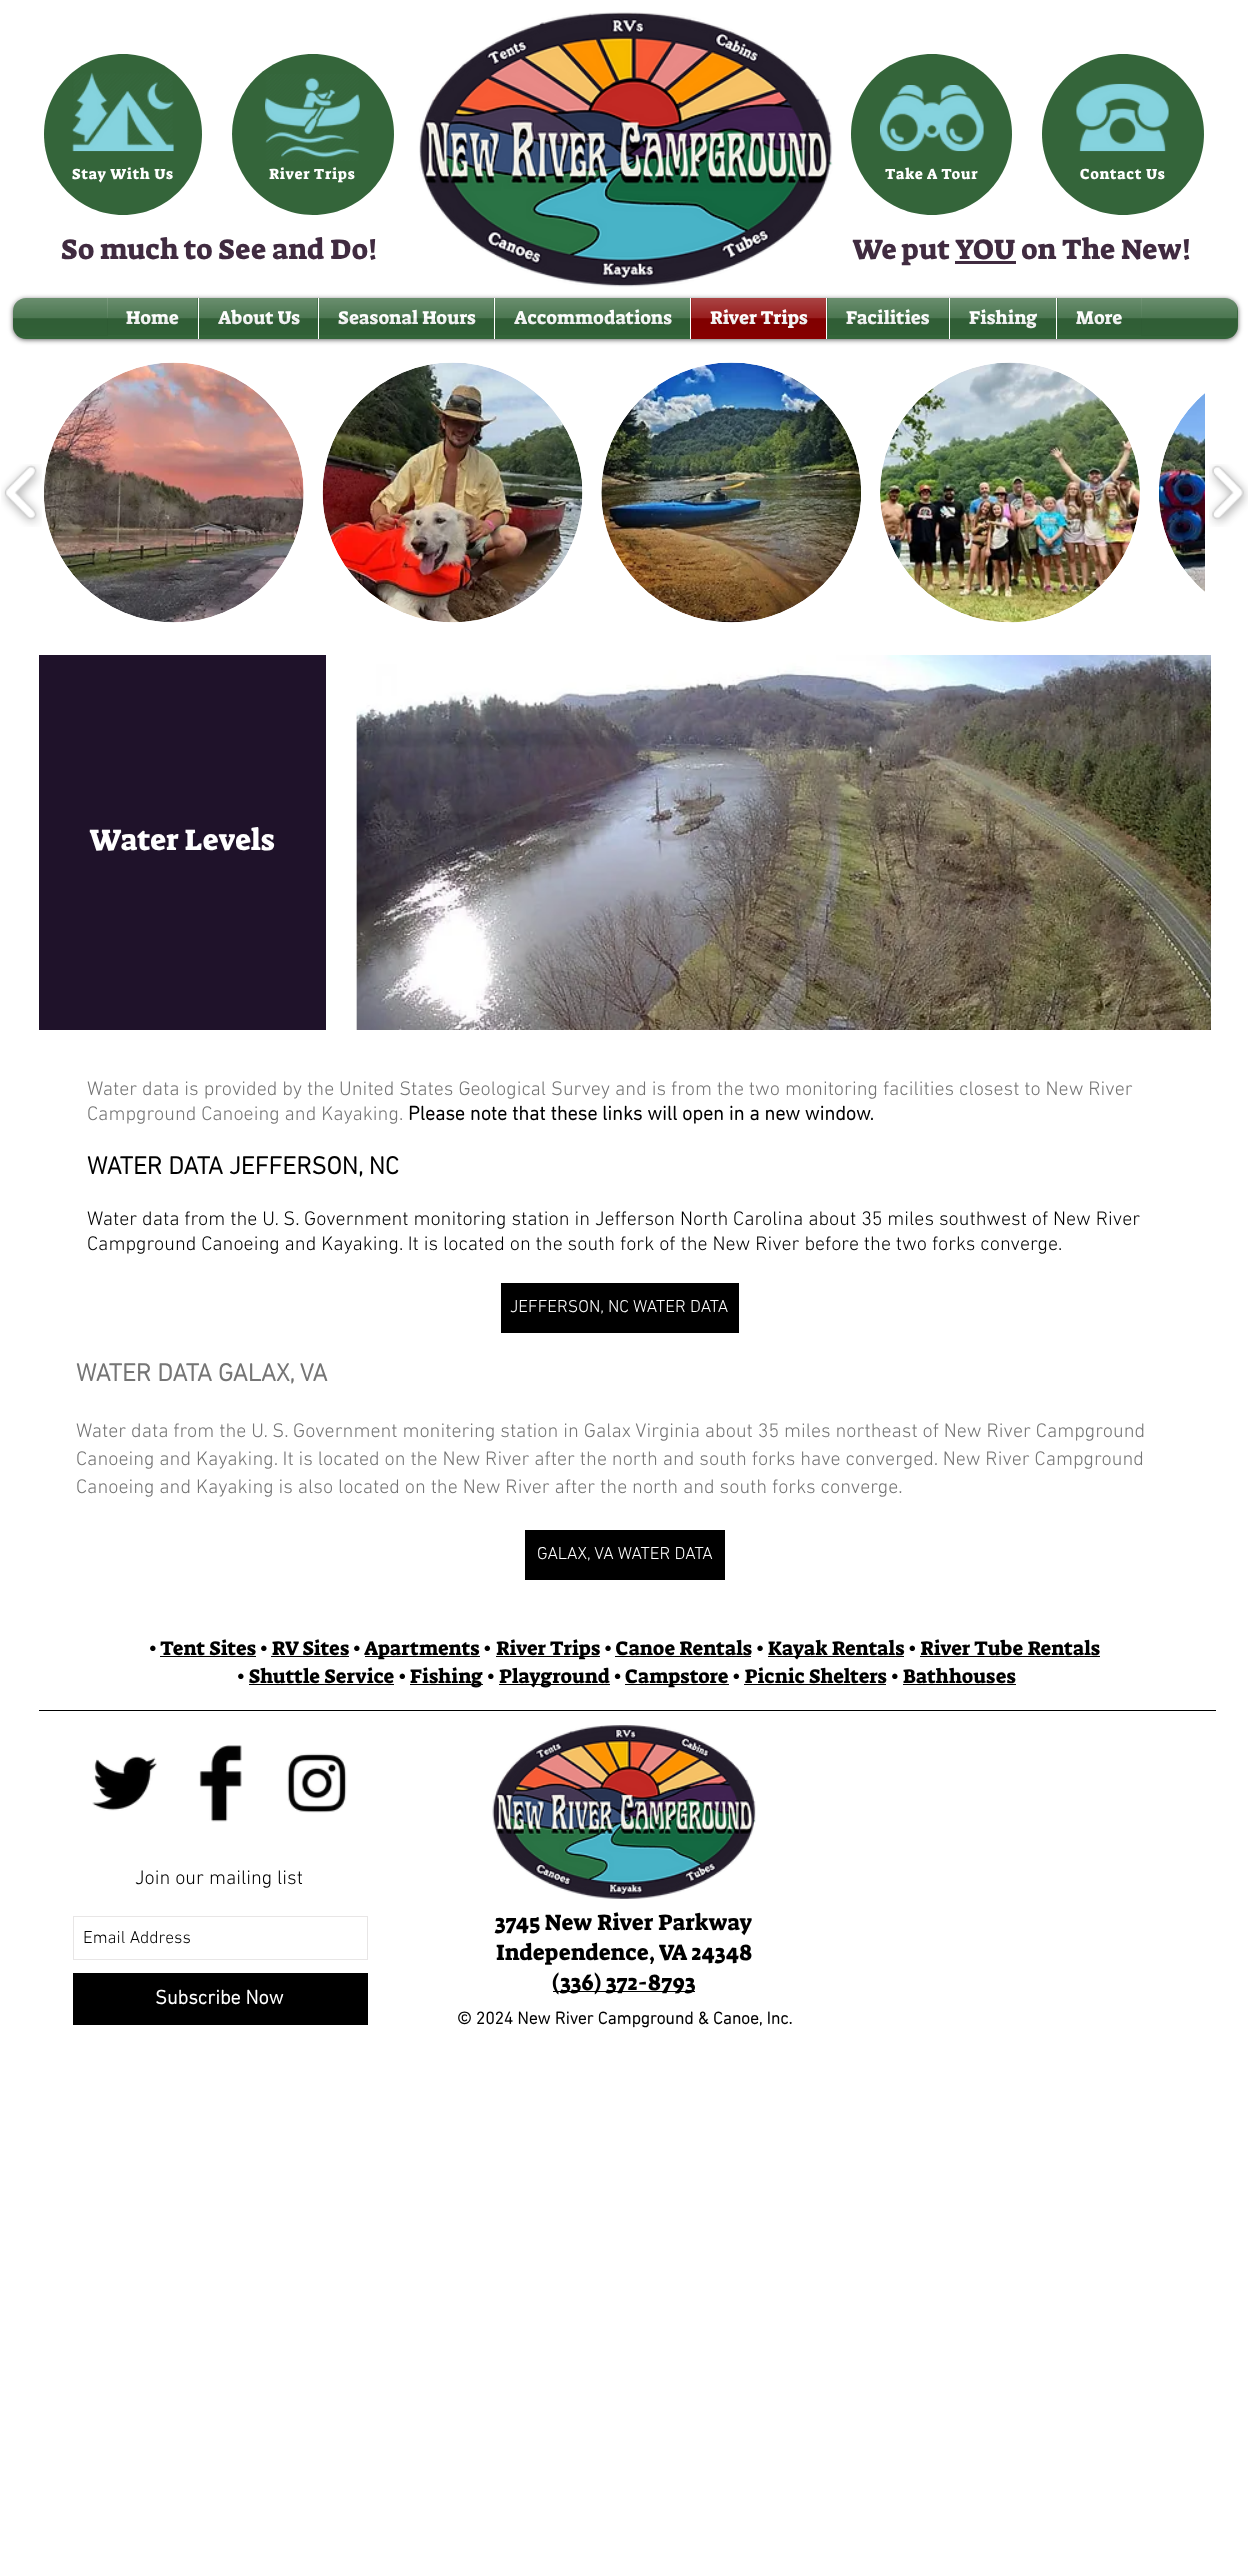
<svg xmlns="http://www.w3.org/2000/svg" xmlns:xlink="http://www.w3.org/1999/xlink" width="1248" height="2574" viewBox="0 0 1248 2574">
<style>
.cls-1{font:15px Suez One;letter-spacing:0.75px;fill:#ffffff}
.cls-2{font:28.75px Suez One;fill:#402b40}
.cls-3{font:18.75px Suez One;fill:#ffffff}
.cls-4{font:30px Suez One;fill:#ffffff}
.cls-5{font:300 20px 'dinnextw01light';fill:#757575}
.cls-6{font:bold 20px 'dinnextw01light';fill:#000000}
.cls-7{font:bold 25px 'dinnextw01light';fill:#000000}
.cls-8{font:300 20px 'dinnextw01light';fill:#000000}
.cls-9{font:300 17.5px 'dinnextw01light';fill:#ffffff}
.cls-10{font:bold 25px 'dinnextw01light';fill:#757575}
.cls-11{font:20px Suez One;fill:#000000}
.cls-12{font:300 17.5px 'dinnextw01light';fill:#000000}
.cls-13{font:bold 20px 'dinnextw01light';fill:#ffffff}
.cls-14{font:22.5px Suez One;fill:#000000}
.cls-15{font:bold 17.5px 'dinnextw01light';fill:#000000}
</style>
<rect width="100%" height="100%" fill="#ffffff"/>
<path fill="#34653a" d="M202 134C202 179 167 215 123 215C79 215 44 179 44 134C44 90 79 54 123 54C167 54 202 90 202 134Z"/>
<path fill="#34653a" d="M394 134C394 179 358 215 313 215C269 215 232 179 232 134C232 90 269 54 313 54C358 54 394 90 394 134Z"/>
<image xlink:href="image0.png" x="419" y="12" width="414" height="275"/>
<path fill="#34653a" d="M1012 134C1012 179 976 215 932 215C887 215 851 179 851 134C851 90 887 54 932 54C976 54 1012 90 1012 134Z"/>
<path fill="#34653a" d="M1204 134C1204 179 1168 215 1123 215C1079 215 1042 179 1042 134C1042 90 1079 54 1123 54C1168 54 1204 90 1204 134Z"/>
<image xlink:href="image1.png" x="72" y="72" width="102" height="80"/>
<image xlink:href="image2.png" x="265" y="74" width="95" height="87"/>
<image xlink:href="image3.png" x="880" y="85" width="104" height="67"/>
<image xlink:href="image4.png" x="1076" y="83" width="93" height="69"/>
<rect fill="#402b40" x="955" y="261" width="61" height="3"/>
<rect fill="#000000" fill-opacity="0.6" filter="blur(2.5px)" x="13" y="299" width="1225" height="41" rx="13"/>
<rect fill="#34653a" x="13" y="298" width="1225" height="41" rx="13"/>
<image xlink:href="image5.png" x="13" y="298" width="1225" height="38"/>
<rect fill="#34653a" x="108" y="298" width="90" height="38"/>
<rect fill="#34653a" x="199" y="298" width="119" height="38"/>
<rect fill="#ffffff" x="198" y="298" width="1" height="41"/>
<rect fill="#34653a" x="319" y="298" width="175" height="38"/>
<rect fill="#ffffff" x="318" y="298" width="1" height="41"/>
<rect fill="#34653a" x="495" y="298" width="195" height="38"/>
<rect fill="#ffffff" x="494" y="298" width="1" height="41"/>
<rect fill="#8b0000" x="691" y="298" width="135" height="41"/>
<rect fill="#ffffff" x="690" y="298" width="1" height="41"/>
<rect fill="#34653a" x="827" y="298" width="122" height="38"/>
<rect fill="#ffffff" x="826" y="298" width="1" height="41"/>
<rect fill="#34653a" x="950" y="298" width="106" height="38"/>
<rect fill="#ffffff" x="949" y="298" width="1" height="41"/>
<rect fill="#34653a" x="1057" y="298" width="84" height="38"/>
<rect fill="#ffffff" x="1056" y="298" width="1" height="41"/>
<image xlink:href="image14.png" x="1" y="464" width="41" height="63"/>
<image xlink:href="image15.png" x="44" y="362" width="260" height="261"/>
<image xlink:href="image16.png" x="322" y="362" width="261" height="261"/>
<image xlink:href="image17.png" x="601" y="362" width="260" height="261"/>
<image xlink:href="image18.png" x="880" y="362" width="260" height="261"/>
<image xlink:href="image19.png" x="1159" y="393" width="46" height="199"/>
<image xlink:href="image20.png" x="1209" y="464" width="39" height="63"/>
<rect fill="#1f122a" x="39" y="655" width="287" height="375"/>
<image xlink:href="image21.png" x="356" y="655" width="855" height="375"/>
<rect fill="#000000" x="501" y="1283" width="238" height="50"/>
<rect fill="#000000" x="525" y="1530" width="200" height="50"/>
<rect fill="#000000" x="160" y="1656" width="96" height="1"/>
<rect fill="#000000" x="271" y="1656" width="78" height="1"/>
<rect fill="#000000" x="365" y="1656" width="115" height="1"/>
<rect fill="#000000" x="496" y="1656" width="104" height="1"/>
<rect fill="#000000" x="615" y="1656" width="136" height="1"/>
<rect fill="#000000" x="768" y="1656" width="136" height="1"/>
<rect fill="#000000" x="920" y="1656" width="180" height="1"/>
<rect fill="#000000" x="249" y="1684" width="145" height="1"/>
<rect fill="#000000" x="410" y="1684" width="73" height="1"/>
<rect fill="#000000" x="499" y="1684" width="111" height="1"/>
<rect fill="#000000" x="625" y="1684" width="104" height="1"/>
<rect fill="#000000" x="744" y="1684" width="142" height="1"/>
<rect fill="#000000" x="903" y="1684" width="113" height="1"/>
<rect fill="#000000" x="39" y="1710" width="1177" height="1"/>
<image xlink:href="image22.png" x="92" y="1756" width="65" height="55"/>
<image xlink:href="image23.png" x="199" y="1745" width="43" height="77"/>
<image xlink:href="image24.png" x="287" y="1753" width="60" height="60"/>
<image xlink:href="image25.png" x="492" y="1725" width="264" height="174"/>
<rect fill="none" stroke="#e8e6e6" x="73.5" y="1916.5" width="294" height="43"/>
<rect fill="#000000" x="73" y="1973" width="295" height="52"/>
<rect fill="#000000" x="553" y="1991" width="142" height="1"/>
<text class="cls-1" x="72" y="179">Stay With Us</text>
<text class="cls-1" x="269" y="179">River Trips</text>
<text class="cls-1" x="885" y="179">Take A Tour</text>
<text class="cls-1" x="1080" y="179">Contact Us</text>
<text class="cls-2" x="61" y="259">So much to See and Do!</text>
<text class="cls-2" x="852" y="259" word-spacing="-1">We put</text>
<text class="cls-2" x="955" y="259">YOU on The New!</text>
<text class="cls-3" x="126" y="324">Home</text>
<image xlink:href="image6.png" x="107" y="298" width="91" height="37"/>
<text class="cls-3" x="218" y="324">About Us</text>
<image xlink:href="image7.png" x="199" y="298" width="119" height="37"/>
<text class="cls-3" x="338" y="324">Seasonal Hours</text>
<image xlink:href="image8.png" x="319" y="298" width="175" height="37"/>
<text class="cls-3" x="514" y="324">Accommodations</text>
<image xlink:href="image9.png" x="495" y="298" width="195" height="37"/>
<text class="cls-3" x="710" y="324">River Trips</text>
<image xlink:href="image10.png" x="691" y="298" width="135" height="40"/>
<text class="cls-3" x="846" y="324">Facilities</text>
<image xlink:href="image11.png" x="827" y="298" width="122" height="37"/>
<text class="cls-3" x="969" y="324">Fishing</text>
<image xlink:href="image12.png" x="950" y="298" width="106" height="37"/>
<text class="cls-3" x="1076" y="324">More</text>
<image xlink:href="image13.png" x="1057" y="298" width="85" height="37"/>
<text class="cls-4" x="89" y="850">Water Levels</text>
<text class="cls-5"><tspan x="87" y="1095">Water data is provided by the United States Geological Survey and is from the two monitoring facilities closest to New River</tspan><tspan x="87" y="1120">Campground Canoeing and Kayaking.</tspan></text>
<text class="cls-6" x="408" y="1120">Please note that these links will open in a new window.</text>
<text class="cls-7" x="87" y="1174">WATER DATA JEFFERSON, NC</text>
<text class="cls-8"><tspan x="87" y="1225">Water data from the U. S. Government monitoring station in Jefferson North Carolina about 35 miles southwest of New River</tspan><tspan x="87" y="1250">Campground Canoeing and Kayaking. It is located on the south fork of the New River before the two forks converge.</tspan></text>
<text class="cls-9" x="510" y="1312">JEFFERSON, NC WATER DATA</text>
<text class="cls-10" x="76" y="1381">WATER DATA GALAX, VA</text>
<text class="cls-5"><tspan x="76" y="1437">Water data from the U. S. Government monitering station in Galax Virginia about 35 miles northeast of New River Campground</tspan><tspan x="76" y="1465">Canoeing and Kayaking. It is located on the New River after the north and south forks have converged. New River Campground</tspan><tspan x="76" y="1493">Canoeing and Kayaking is also located on the New River after the north and south forks converge.</tspan></text>
<text class="cls-9" x="537" y="1559">GALAX, VA WATER DATA</text>
<text class="cls-11" x="149" y="1655">•</text>
<text class="cls-11" x="160" y="1655">Tent Sites • RV Sites</text>
<text class="cls-11" x="353" y="1655">•</text>
<text class="cls-11" x="364" y="1655">Apartments •</text>
<text class="cls-11" x="496" y="1655">River Trips • Canoe Rentals •</text>
<text class="cls-11" x="768" y="1655">Kayak Rentals • River Tube Rentals</text>
<text class="cls-11" x="237" y="1683">• Shuttle Service •</text>
<text class="cls-11" x="410" y="1683">Fishing •</text>
<text class="cls-11" x="499" y="1683">Playground •</text>
<text class="cls-11" x="625" y="1683">Campstore • Picnic Shelters • Bathhouses</text>
<text class="cls-8" x="135" y="1884">Join our mailing list</text>
<text class="cls-12" x="83" y="1943">Email Address</text>
<text class="cls-13" x="155" y="2004">Subscribe Now</text>
<text class="cls-14" x="495" y="1930">3745 New River Parkway</text>
<text class="cls-14" x="496" y="1960">Independence, VA 24348</text>
<text class="cls-14" x="552" y="1990">(336) 372-8793</text>
<text class="cls-15" x="457" y="2024">© 2024 New River Campground &amp; Canoe, Inc.</text>
</svg>
